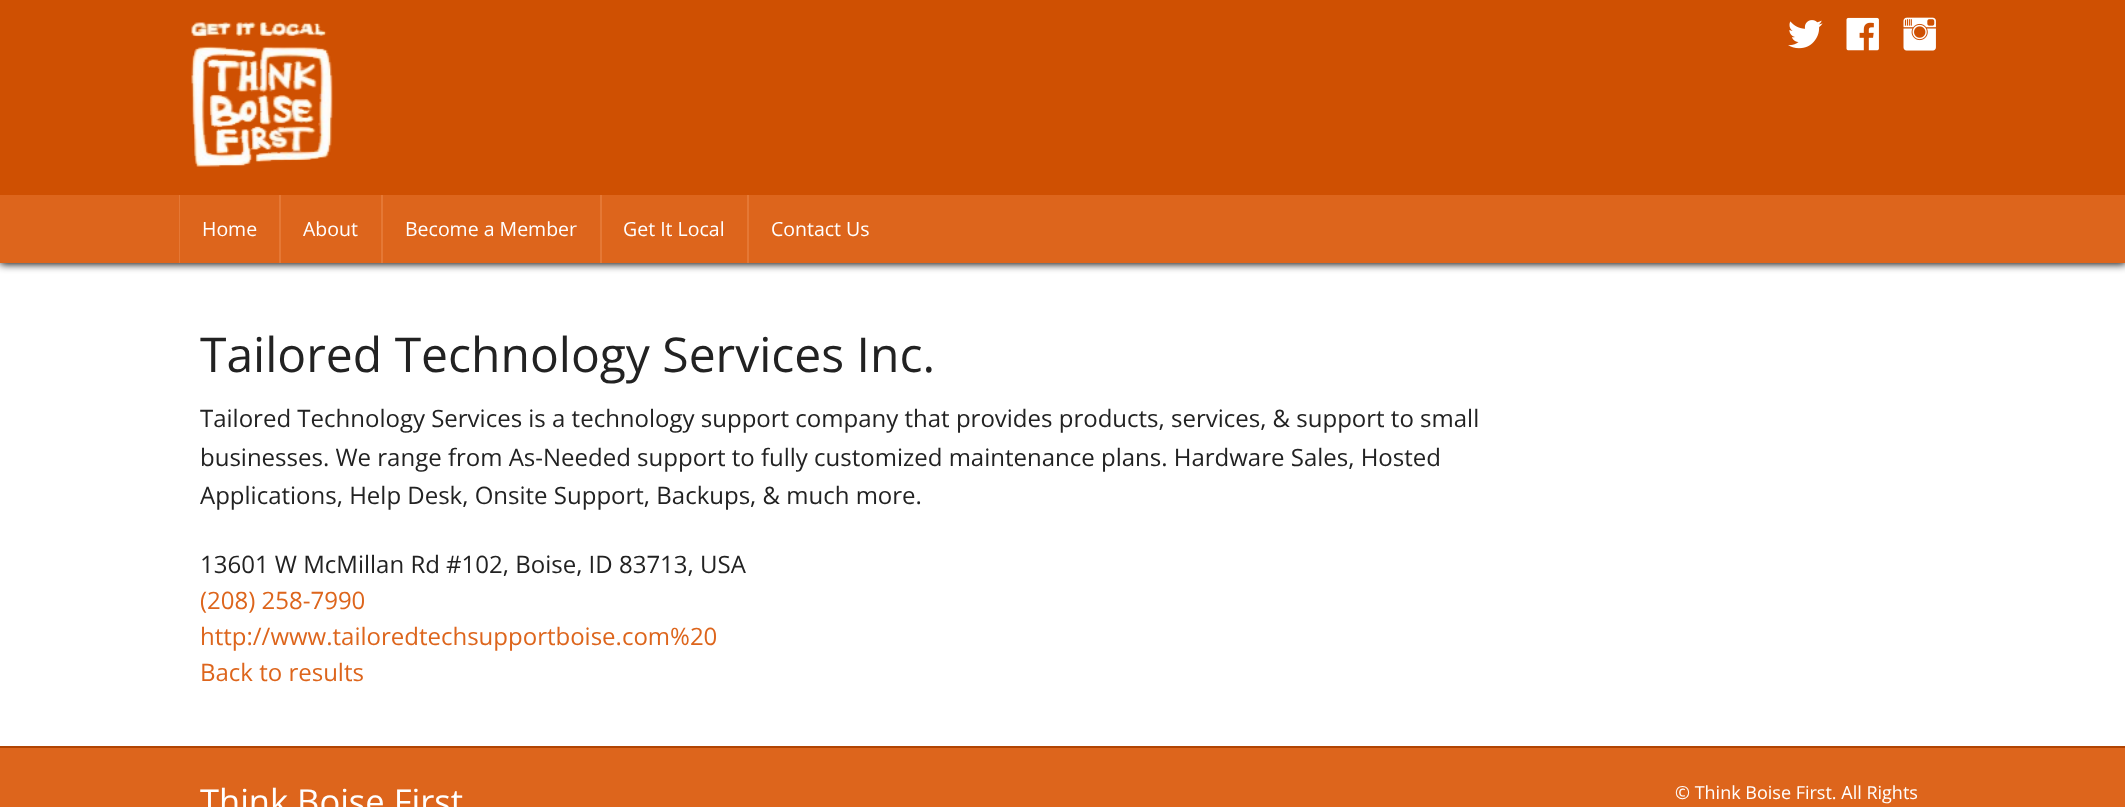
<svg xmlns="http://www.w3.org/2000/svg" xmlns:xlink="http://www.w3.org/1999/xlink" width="2125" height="807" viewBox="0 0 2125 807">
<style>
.cls-1{font:19.5px Open Sans;fill:#ffffff}
.cls-2{font:48px Open Sans;fill:#222222}
.cls-3{font:24px Open Sans;fill:#222222}
.cls-4{font:24px Open Sans;fill:#dd651c}
.cls-5{font:34.5px Open Sans;fill:#ffffff}
.cls-6{font:18px Open Sans;fill:#ffffff}
</style>
<rect width="100%" height="100%" fill="#ffffff"/>
<rect fill="#000000" filter="blur(4px)" x="0" y="2" width="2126" height="262"/>
<rect fill="#dd651c" x="0" y="195" width="2125" height="68"/>
<rect fill="#cf5002" x="0" y="0" width="2125" height="195"/>
<image xlink:href="image0.png" x="191" y="21" width="142" height="146"/>
<image xlink:href="image1.png" x="1788" y="20" width="35" height="29"/>
<image xlink:href="image2.png" x="1846" y="17" width="33" height="34"/>
<image xlink:href="image3.png" x="1903" y="17" width="33" height="34"/>
<rect fill="#e57835" x="179" y="195" width="1" height="68"/>
<rect fill="#e57835" x="279" y="195" width="2" height="68"/>
<rect fill="#e57835" x="381" y="195" width="2" height="68"/>
<rect fill="#e57835" x="600" y="195" width="2" height="68"/>
<rect fill="#e57835" x="747" y="195" width="2" height="68"/>
<rect fill="#dd651c" x="0" y="748" width="2125" height="59"/>
<rect fill="#b04402" x="0" y="746" width="2125" height="2"/>
<text class="cls-1" x="202" y="236">Home</text>
<text class="cls-1" x="303" y="236">About</text>
<text class="cls-1" x="405" y="236">Become a Member</text>
<text class="cls-1" x="623" y="236">Get It Local</text>
<text class="cls-1" x="771" y="236">Contact Us</text>
<text class="cls-2" x="200" y="372">Tailored Technology Services Inc.</text>
<text class="cls-3"><tspan x="200" y="427">Tailored Technology Services is a technology support company that provides products, services, &amp; support to small</tspan><tspan x="200" y="466">businesses. We range from As-Needed support to fully customized maintenance plans. Hardware Sales, Hosted</tspan><tspan x="200" y="504">Applications, Help Desk, Onsite Support, Backups, &amp; much more.</tspan></text>
<text class="cls-3" x="200" y="573">13601 W McMillan Rd #102, Boise, ID 83713, USA</text>
<text class="cls-4"><tspan x="200" y="609">(208) 258-7990</tspan><tspan x="200" y="645">http://www.tailoredtechsupportboise.com%20</tspan><tspan x="200" y="681">Back to results</tspan></text>
<text class="cls-5" x="200" y="814">Think Boise First</text>
<text class="cls-6" x="1675" y="799">© Think Boise First. All Rights</text>
</svg>
